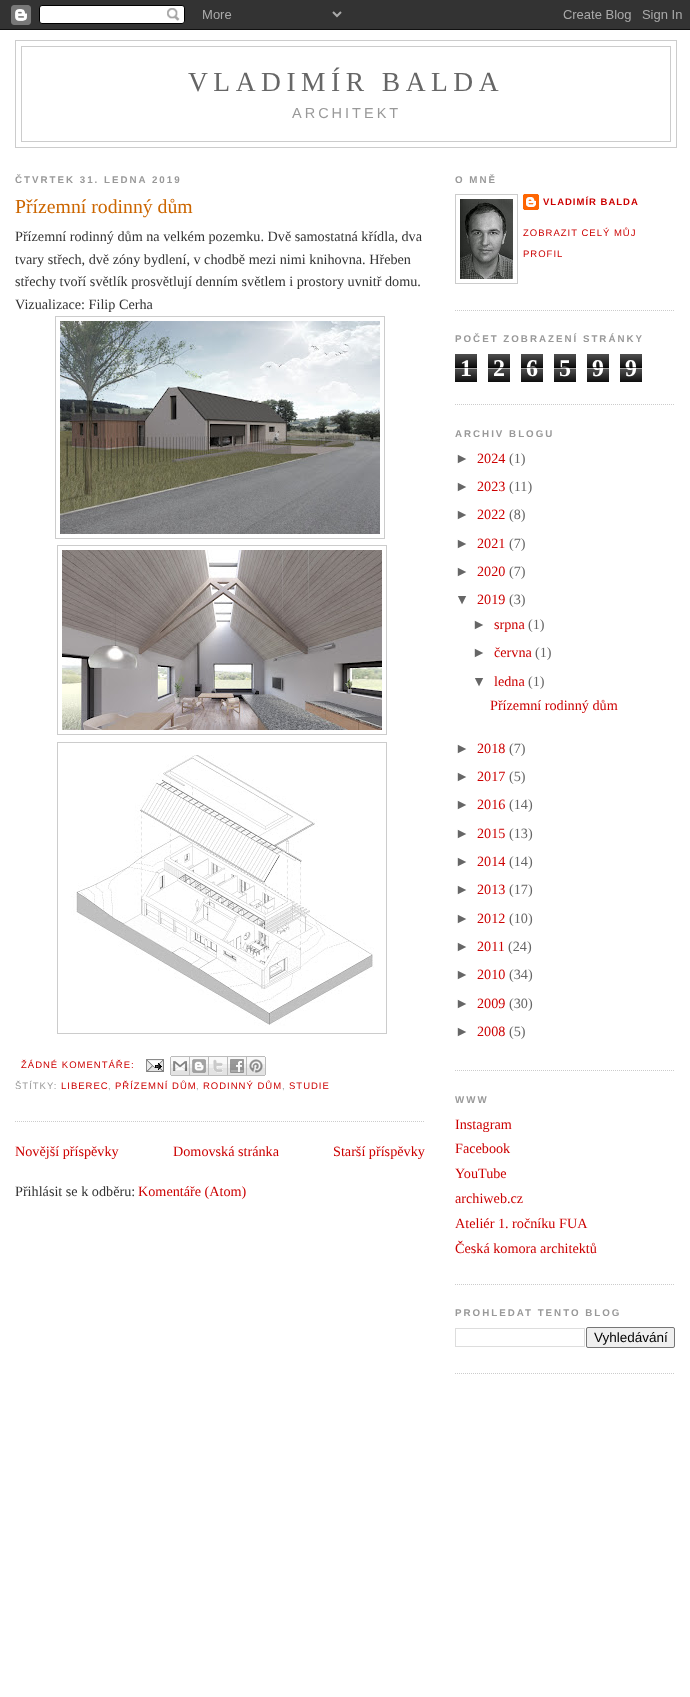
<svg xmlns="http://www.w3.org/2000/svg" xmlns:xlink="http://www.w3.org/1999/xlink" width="690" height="1697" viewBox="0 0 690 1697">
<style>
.cls-1{font:27.5px Liberation Serif;letter-spacing:5.5px;fill:#666666}
.cls-2{font:14.5px Liberation Sans;letter-spacing:3px;fill:#999999}
.cls-3{font:bold 9.75px Liberation Sans;letter-spacing:2px;fill:#999999}
.cls-4{font:19.75px Liberation Serif;fill:#cc6600}
.cls-5{font:14.2px Liberation Serif;fill:#333333}
.cls-6{font:9.5px Liberation Sans;letter-spacing:1px;fill:#cc0000}
.cls-7{font:9.5px Liberation Sans;letter-spacing:1px;fill:#999999}
.cls-8{font:14.2px Liberation Serif;fill:#cc0000}
.cls-9{font:bold 9.5px Liberation Sans;letter-spacing:1px;fill:#cc0000}
.cls-10{font:bold 24px Liberation Serif;fill:#ffffff}
.cls-11{font:14.2px Liberation Sans;fill:#666666}
.cls-12{font:14.2px Liberation Serif;fill:#666666}
.cls-13{font:13.5px Liberation Sans;fill:#000000}
</style>
<rect width="100%" height="100%" fill="#ffffff"/>
<image xlink:href="image0.png" x="0" y="0" width="690" height="30"/>
<rect fill="none" stroke="#cccccc" x="15.5" y="40.5" width="661" height="107"/>
<rect fill="none" stroke="#cccccc" x="21.5" y="46.5" width="649" height="95"/>
<path fill="none" stroke="#cccccc" stroke-dasharray="1 1" d="M15 1121.5H425"/>
<rect fill="none" stroke="#cccccc" x="55.5" y="316.5" width="329" height="222"/>
<image xlink:href="image1.png" x="60" y="321" width="320" height="213"/>
<rect fill="none" stroke="#cccccc" x="57.5" y="545.5" width="329" height="189"/>
<image xlink:href="image2.png" x="62" y="550" width="320" height="180"/>
<rect fill="none" stroke="#cccccc" x="57.5" y="742.5" width="329" height="291"/>
<image xlink:href="image3.png" x="71" y="755" width="303" height="271"/>
<image xlink:href="image4.png" x="146" y="1059" width="18" height="13"/>
<image xlink:href="image5.png" x="170" y="1056" width="20" height="20"/>
<image xlink:href="image6.png" x="190" y="1056" width="19" height="20"/>
<image xlink:href="image7.png" x="209" y="1056" width="19" height="20"/>
<image xlink:href="image8.png" x="228" y="1056" width="19" height="20"/>
<image xlink:href="image9.png" x="247" y="1056" width="19" height="20"/>
<path fill="none" stroke="#cccccc" stroke-dasharray="1 1" d="M455 310.5H675"/>
<rect fill="none" stroke="#cccccc" x="455.5" y="194.5" width="62" height="89"/>
<image xlink:href="image10.png" x="460" y="199" width="53" height="80"/>
<image xlink:href="image11.png" x="523" y="194" width="16" height="16"/>
<path fill="none" stroke="#cccccc" stroke-dasharray="1 1" d="M455 404.5H675"/>
<image xlink:href="image12.png" x="455" y="354" width="22" height="28"/>
<image xlink:href="image12.png" x="488" y="354" width="22" height="28"/>
<image xlink:href="image12.png" x="521" y="354" width="22" height="28"/>
<image xlink:href="image12.png" x="554" y="354" width="22" height="28"/>
<image xlink:href="image12.png" x="587" y="354" width="22" height="28"/>
<image xlink:href="image12.png" x="620" y="354" width="22" height="28"/>
<path fill="none" stroke="#cccccc" stroke-dasharray="1 1" d="M455 1070.5H675"/>
<path fill="none" stroke="#cccccc" stroke-dasharray="1 1" d="M455 1284.5H675"/>
<path fill="none" stroke="#cccccc" stroke-dasharray="1 1" d="M455 1373.5H675"/>
<rect fill="none" stroke="#dddddd" x="455.5" y="1328.5" width="129" height="18"/>
<rect fill="#efefef" stroke="#767676" x="586.5" y="1327.5" width="88" height="20" rx="1.5"/>
<text class="cls-1" x="188" y="91">VLADIMÍR BALDA</text>
<text class="cls-2" x="292" y="118">ARCHITEKT</text>
<text class="cls-3" x="15" y="183">ČTVRTEK 31. LEDNA 2019</text>
<text class="cls-4" x="15" y="213">Přízemní rodinný dům</text>
<text class="cls-5"><tspan x="15" y="241">Přízemní rodinný dům na velkém pozemku. Dvě samostatná křídla, dva</tspan><tspan x="15" y="264">tvary střech, dvě zóny bydlení, v chodbě mezi nimi knihovna. Hřeben</tspan><tspan x="15" y="286">střechy tvoří světlík prosvětlují denním světlem i prostory uvnitř domu.</tspan><tspan x="15" y="309">Vizualizace: Filip Cerha</tspan></text>
<text class="cls-6" x="21" y="1068">ŽÁDNÉ KOMENTÁŘE:</text>
<text class="cls-7" x="15" y="1089">ŠTÍTKY:</text>
<text class="cls-6" x="61" y="1089">LIBEREC</text>
<text class="cls-7" x="108" y="1089">,</text>
<text class="cls-6" x="115" y="1089">PŘÍZEMNÍ DŮM</text>
<text class="cls-7" x="196" y="1089">,</text>
<text class="cls-6" x="203" y="1089">RODINNÝ DŮM</text>
<text class="cls-7" x="282" y="1089">,</text>
<text class="cls-6" x="289" y="1089">STUDIE</text>
<text class="cls-8" x="15" y="1156">Novější příspěvky</text>
<text class="cls-8" x="173" y="1156">Domovská stránka</text>
<text class="cls-8" x="333" y="1156">Starší příspěvky</text>
<text class="cls-5" x="15" y="1196">Přihlásit se k odběru:</text>
<text class="cls-8" x="138" y="1196">Komentáře (Atom)</text>
<text class="cls-3" x="455" y="183">O MNĚ</text>
<text class="cls-9" x="543" y="205">VLADIMÍR BALDA</text>
<text class="cls-6" x="523" y="236">ZOBRAZIT CELÝ MŮJ</text>
<text class="cls-6" x="523" y="257">PROFIL</text>
<text class="cls-3" x="455" y="342">POČET ZOBRAZENÍ STRÁNKY</text>
<text class="cls-10" x="460" y="376">1</text>
<rect fill="#000000" fill-opacity="0.65" x="455" y="367" width="22" height="1"/>
<rect fill="#ffffff" fill-opacity="0.65" x="455" y="368" width="22" height="1"/>
<text class="cls-10" x="493" y="376">2</text>
<rect fill="#000000" fill-opacity="0.65" x="488" y="367" width="22" height="1"/>
<rect fill="#ffffff" fill-opacity="0.65" x="488" y="368" width="22" height="1"/>
<text class="cls-10" x="526" y="376">6</text>
<rect fill="#000000" fill-opacity="0.65" x="521" y="367" width="22" height="1"/>
<rect fill="#ffffff" fill-opacity="0.65" x="521" y="368" width="22" height="1"/>
<text class="cls-10" x="559" y="376">5</text>
<rect fill="#000000" fill-opacity="0.65" x="554" y="367" width="22" height="1"/>
<rect fill="#ffffff" fill-opacity="0.65" x="554" y="368" width="22" height="1"/>
<text class="cls-10" x="592" y="376">9</text>
<rect fill="#000000" fill-opacity="0.65" x="587" y="367" width="22" height="1"/>
<rect fill="#ffffff" fill-opacity="0.65" x="587" y="368" width="22" height="1"/>
<text class="cls-10" x="625" y="376">9</text>
<rect fill="#000000" fill-opacity="0.65" x="620" y="367" width="22" height="1"/>
<rect fill="#ffffff" fill-opacity="0.65" x="620" y="368" width="22" height="1"/>
<text class="cls-3" x="455" y="437">ARCHIV BLOGU</text>
<text class="cls-11" x="455" y="463">►</text>
<text class="cls-8" x="477" y="463">2024</text>
<text class="cls-12" x="509" y="463">(1)</text>
<text class="cls-11" x="455" y="491">►</text>
<text class="cls-8" x="477" y="491">2023</text>
<text class="cls-12" x="509" y="491">(11)</text>
<text class="cls-11" x="455" y="519">►</text>
<text class="cls-8" x="477" y="519">2022</text>
<text class="cls-12" x="509" y="519">(8)</text>
<text class="cls-11" x="455" y="548">►</text>
<text class="cls-8" x="477" y="548">2021</text>
<text class="cls-12" x="509" y="548">(7)</text>
<text class="cls-11" x="455" y="576">►</text>
<text class="cls-8" x="477" y="576">2020</text>
<text class="cls-12" x="509" y="576">(7)</text>
<text class="cls-11" x="455" y="604">▼</text>
<text class="cls-8" x="477" y="604">2019</text>
<text class="cls-12" x="509" y="604">(3)</text>
<text class="cls-11" x="472" y="629">►</text>
<text class="cls-8" x="494" y="629">srpna</text>
<text class="cls-12" x="528" y="629">(1)</text>
<text class="cls-11" x="472" y="657">►</text>
<text class="cls-8" x="494" y="657">června</text>
<text class="cls-12" x="535" y="657">(1)</text>
<text class="cls-11" x="472" y="686">▼</text>
<text class="cls-8" x="494" y="686">ledna</text>
<text class="cls-12" x="528" y="686">(1)</text>
<text class="cls-8" x="490" y="710">Přízemní rodinný dům</text>
<text class="cls-11" x="455" y="753">►</text>
<text class="cls-8" x="477" y="753">2018</text>
<text class="cls-12" x="509" y="753">(7)</text>
<text class="cls-11" x="455" y="781">►</text>
<text class="cls-8" x="477" y="781">2017</text>
<text class="cls-12" x="509" y="781">(5)</text>
<text class="cls-11" x="455" y="809">►</text>
<text class="cls-8" x="477" y="809">2016</text>
<text class="cls-12" x="509" y="809">(14)</text>
<text class="cls-11" x="455" y="838">►</text>
<text class="cls-8" x="477" y="838">2015</text>
<text class="cls-12" x="509" y="838">(13)</text>
<text class="cls-11" x="455" y="866">►</text>
<text class="cls-8" x="477" y="866">2014</text>
<text class="cls-12" x="509" y="866">(14)</text>
<text class="cls-11" x="455" y="894">►</text>
<text class="cls-8" x="477" y="894">2013</text>
<text class="cls-12" x="509" y="894">(17)</text>
<text class="cls-11" x="455" y="923">►</text>
<text class="cls-8" x="477" y="923">2012</text>
<text class="cls-12" x="509" y="923">(10)</text>
<text class="cls-11" x="455" y="951">►</text>
<text class="cls-8" x="477" y="951">2011</text>
<text class="cls-12" x="508" y="951">(24)</text>
<text class="cls-11" x="455" y="979">►</text>
<text class="cls-8" x="477" y="979">2010</text>
<text class="cls-12" x="509" y="979">(34)</text>
<text class="cls-11" x="455" y="1008">►</text>
<text class="cls-8" x="477" y="1008">2009</text>
<text class="cls-12" x="509" y="1008">(30)</text>
<text class="cls-11" x="455" y="1036">►</text>
<text class="cls-8" x="477" y="1036">2008</text>
<text class="cls-12" x="509" y="1036">(5)</text>
<text class="cls-3" x="455" y="1103">WWW</text>
<text class="cls-8"><tspan x="455" y="1129">Instagram</tspan><tspan x="455" y="1153">Facebook</tspan><tspan x="455" y="1178">YouTube</tspan><tspan x="455" y="1203">archiweb.cz</tspan><tspan x="455" y="1228">Ateliér 1. ročníku FUA</tspan><tspan x="455" y="1253">Česká komora architektů</tspan></text>
<text class="cls-3" x="455" y="1316">PROHLEDAT TENTO BLOG</text>
<text class="cls-13" x="594" y="1342">Vyhledávání</text>
</svg>
